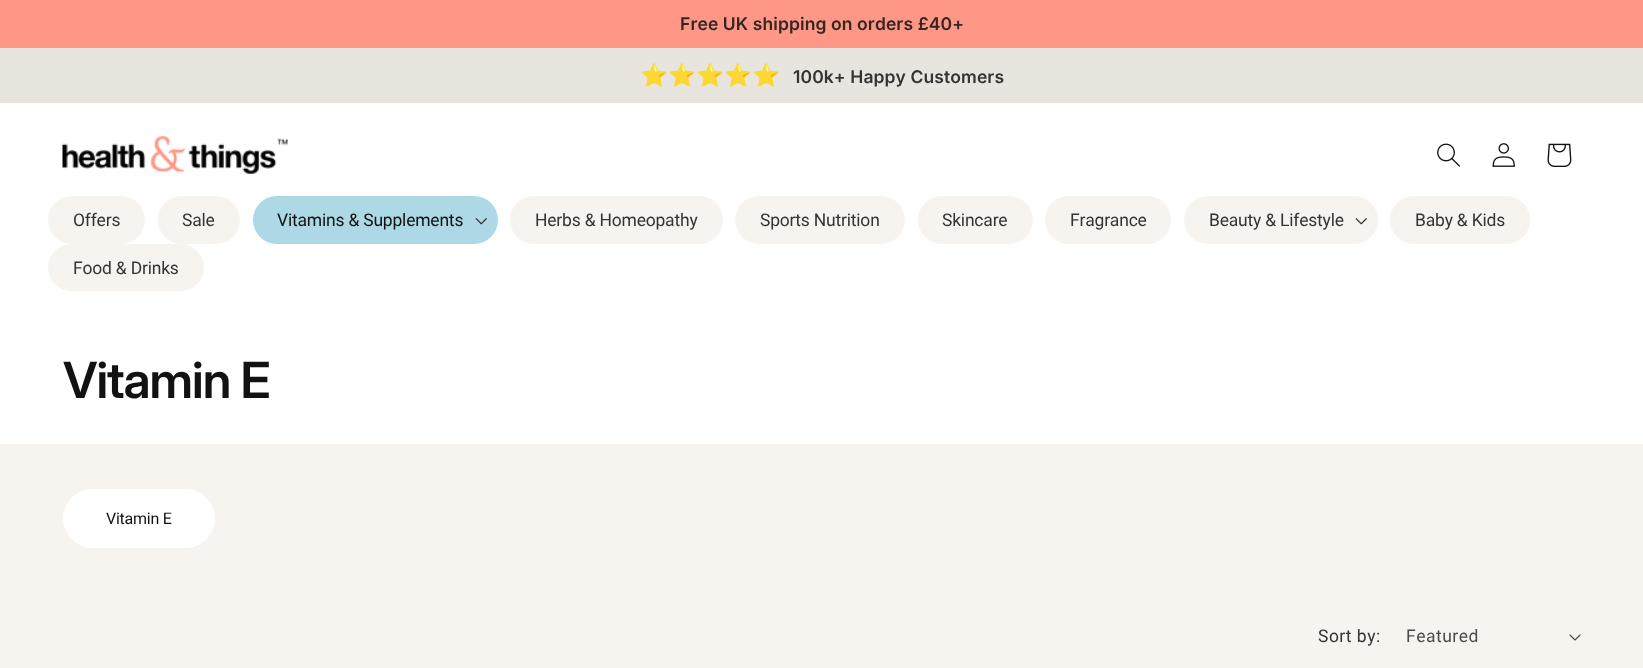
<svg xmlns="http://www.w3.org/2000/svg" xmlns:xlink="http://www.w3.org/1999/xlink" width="1643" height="668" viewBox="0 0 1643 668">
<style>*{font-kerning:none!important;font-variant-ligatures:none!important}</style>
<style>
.cls-1{font:600 17.5px 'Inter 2';letter-spacing:0.1px;fill:#362623}
.cls-2{font:22.5px Noto Color Emoji;letter-spacing:0.1px;fill:#343433}
.cls-3{font:600 17.5px 'Inter 2';letter-spacing:0.1px;fill:#343433}
.cls-4{font:17.5px Roboto;letter-spacing:-0.2px;fill:#343433}
.cls-5{font:17.5px Roboto;letter-spacing:-0.2px;fill:#121212}
.cls-6{font:600 50px Inter;letter-spacing:-1px;fill:#121212}
.cls-7{font:16px Roboto;letter-spacing:-0.25px;fill:#121212}
.cls-8{font:17.5px Roboto;letter-spacing:0.5px;fill:#343433}
.cls-9{font:17.5px Roboto;letter-spacing:0.5px;fill:#4b4b4a}
</style>
<rect width="100%" height="100%" fill="#ffffff"/>
<rect fill="#ff9786" x="0" y="0" width="1643" height="48"/>
<rect fill="#e8e4de" x="0" y="48" width="1643" height="55"/>
<image xlink:href="image0.png" x="62" y="136" width="226" height="38"/>
<image xlink:href="image1.png" x="1437" y="143" width="23" height="24"/>
<image xlink:href="image2.png" x="1492" y="143" width="23" height="24"/>
<image xlink:href="image3.png" x="1547" y="143" width="25" height="24"/>
<rect fill="#f7f4f0" x="48" y="196" width="97" height="48" rx="24"/>
<rect fill="#f7f4f0" x="158" y="196" width="82" height="48" rx="24"/>
<rect fill="#add8e6" x="253" y="196" width="245" height="48" rx="24"/>
<image xlink:href="image4.png" x="475" y="218" width="12" height="7"/>
<rect fill="#f7f4f0" x="510" y="196" width="213" height="48" rx="24"/>
<rect fill="#f7f4f0" x="735" y="196" width="170" height="48" rx="24"/>
<rect fill="#f7f4f0" x="918" y="196" width="115" height="48" rx="24"/>
<rect fill="#f7f4f0" x="1045" y="196" width="126" height="48" rx="24"/>
<rect fill="#f7f4f0" x="1184" y="196" width="194" height="48" rx="24"/>
<image xlink:href="image5.png" x="1355" y="218" width="12" height="7"/>
<rect fill="#f7f4f0" x="1390" y="196" width="140" height="48" rx="24"/>
<rect fill="#f7f4f0" x="48" y="244" width="156" height="47" rx="23.5"/>
<rect fill="#f7f4f0" x="0" y="444" width="1643" height="224"/>
<rect fill="#ffffff" x="63" y="489" width="152" height="59" rx="29.5"/>
<image xlink:href="image6.png" x="1569" y="634" width="12" height="7"/>
<text class="cls-1" x="680" y="30">Free UK shipping on orders £40+</text>
<text class="cls-2" x="640" y="83">⭐️⭐️⭐️⭐️⭐️</text>
<text class="cls-3" x="793" y="83">100k+ Happy Customers</text>
<text class="cls-4" x="73" y="226">Offers</text>
<text class="cls-4" x="182" y="226">Sale</text>
<text class="cls-5" x="277" y="226">Vitamins &amp; Supplements</text>
<text class="cls-4" x="535" y="226">Herbs &amp; Homeopathy</text>
<text class="cls-4" x="760" y="226">Sports Nutrition</text>
<text class="cls-4" x="942" y="226">Skincare</text>
<text class="cls-4" x="1070" y="226">Fragrance</text>
<text class="cls-4" x="1209" y="226">Beauty &amp; Lifestyle</text>
<text class="cls-4" x="1415" y="226">Baby &amp; Kids</text>
<text class="cls-4" x="73" y="274">Food &amp; Drinks</text>
<text class="cls-6" x="63" y="398">Vitamin E</text>
<text class="cls-7" x="106" y="524">Vitamin E</text>
<text class="cls-8" x="1318" y="642">Sort by:</text>
<text class="cls-9" x="1406" y="642">Featured</text>
</svg>
